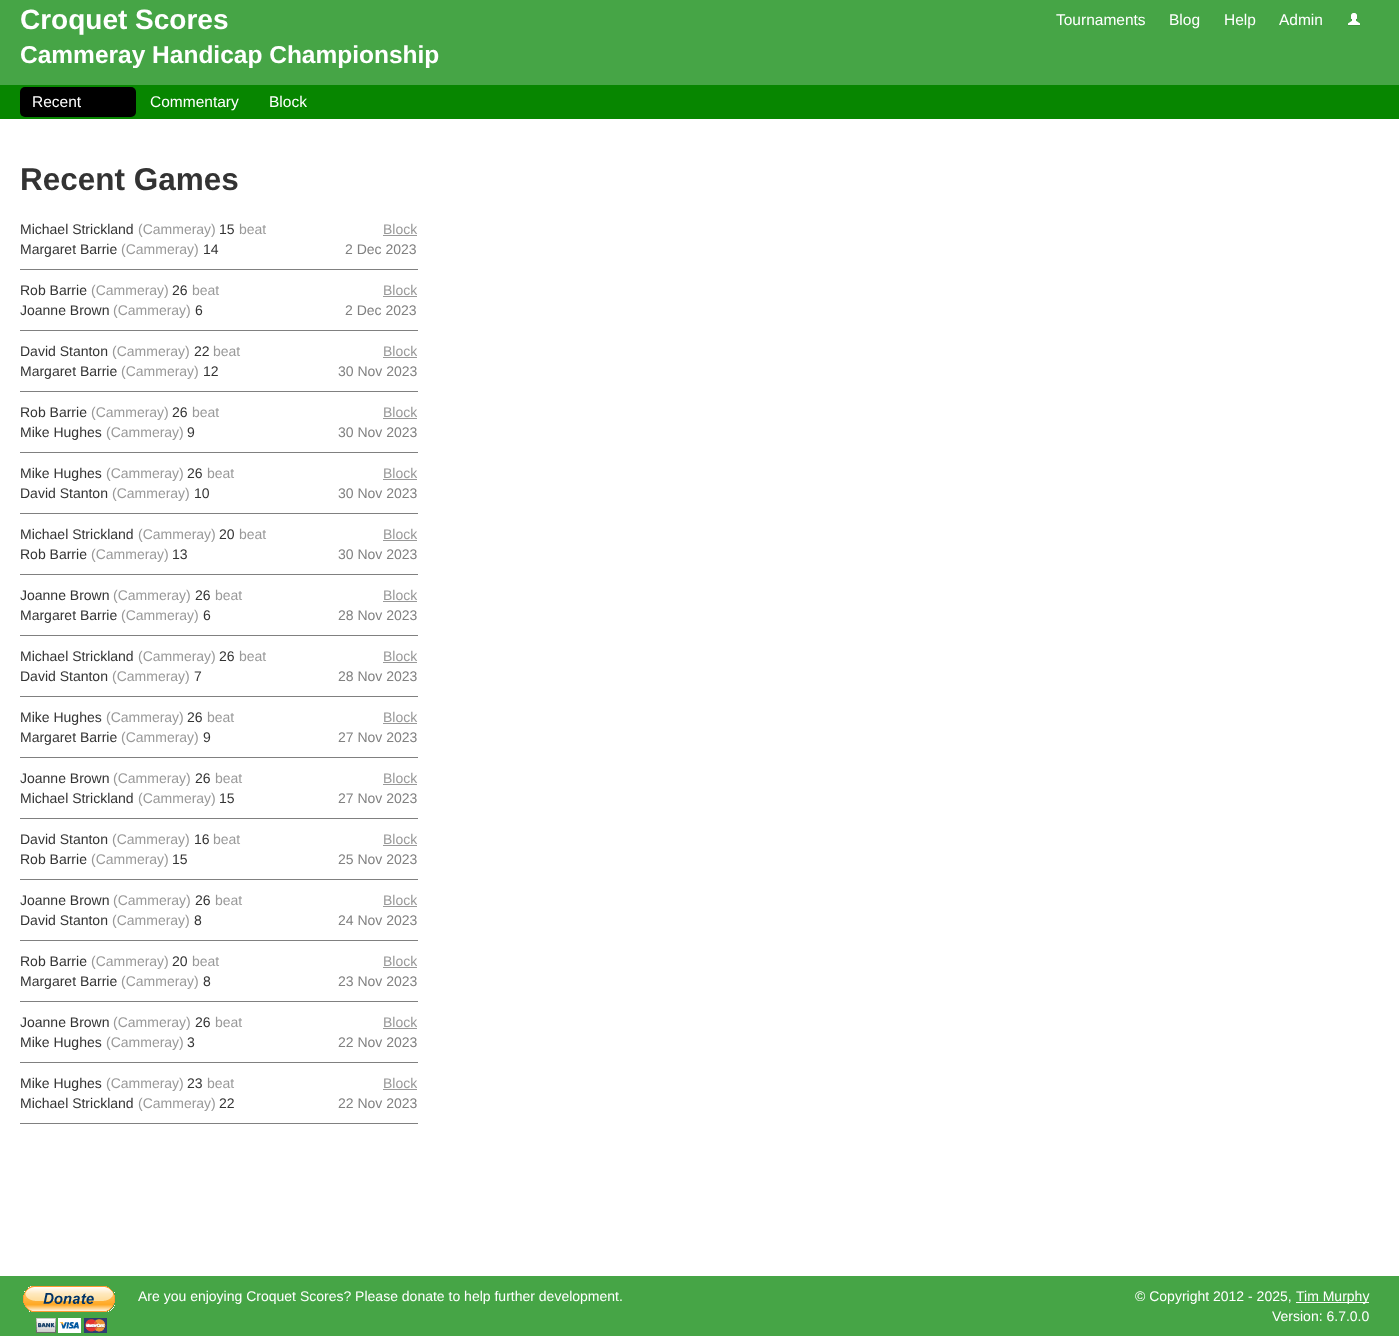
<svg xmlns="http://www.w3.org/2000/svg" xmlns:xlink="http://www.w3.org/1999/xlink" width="1399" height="1336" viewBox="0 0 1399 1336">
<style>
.cls-1{font:bold 28px Liberation Sans;fill:#ffffff}
.cls-2{font:15.5px Liberation Sans;fill:#ffffff}
.cls-3{font:bold 24.5px Liberation Sans;fill:#ffffff}
.cls-4{font:bold 31.5px Liberation Sans;fill:#333333}
.cls-5{font:14px Liberation Sans;fill:#333333}
.cls-6{font:14px Liberation Sans;fill:#999999}
.cls-7{font:14px Liberation Sans;fill:#808080}
.cls-8{font:14px Liberation Sans;fill:#ffffff}
</style>
<rect width="100%" height="100%" fill="#ffffff"/>
<rect fill="#46a546" x="0" y="0" width="1399" height="85"/>
<image xlink:href="image0.png" x="1348" y="13" width="12" height="13"/>
<rect fill="#078600" x="0" y="85" width="1399" height="34"/>
<rect fill="#000000" x="20" y="87" width="116" height="30" rx="5"/>
<rect fill="#808080" x="20" y="269" width="398" height="1"/>
<rect fill="#999999" x="383" y="235" width="34" height="1"/>
<rect fill="#808080" x="20" y="330" width="398" height="1"/>
<rect fill="#999999" x="383" y="296" width="34" height="1"/>
<rect fill="#808080" x="20" y="391" width="398" height="1"/>
<rect fill="#999999" x="383" y="357" width="34" height="1"/>
<rect fill="#808080" x="20" y="452" width="398" height="1"/>
<rect fill="#999999" x="383" y="418" width="34" height="1"/>
<rect fill="#808080" x="20" y="513" width="398" height="1"/>
<rect fill="#999999" x="383" y="479" width="34" height="1"/>
<rect fill="#808080" x="20" y="574" width="398" height="1"/>
<rect fill="#999999" x="383" y="540" width="34" height="1"/>
<rect fill="#808080" x="20" y="635" width="398" height="1"/>
<rect fill="#999999" x="383" y="601" width="34" height="1"/>
<rect fill="#808080" x="20" y="696" width="398" height="1"/>
<rect fill="#999999" x="383" y="662" width="34" height="1"/>
<rect fill="#808080" x="20" y="757" width="398" height="1"/>
<rect fill="#999999" x="383" y="723" width="34" height="1"/>
<rect fill="#808080" x="20" y="818" width="398" height="1"/>
<rect fill="#999999" x="383" y="784" width="34" height="1"/>
<rect fill="#808080" x="20" y="879" width="398" height="1"/>
<rect fill="#999999" x="383" y="845" width="34" height="1"/>
<rect fill="#808080" x="20" y="940" width="398" height="1"/>
<rect fill="#999999" x="383" y="906" width="34" height="1"/>
<rect fill="#808080" x="20" y="1001" width="398" height="1"/>
<rect fill="#999999" x="383" y="967" width="34" height="1"/>
<rect fill="#808080" x="20" y="1062" width="398" height="1"/>
<rect fill="#999999" x="383" y="1028" width="34" height="1"/>
<rect fill="#808080" x="20" y="1123" width="398" height="1"/>
<rect fill="#999999" x="383" y="1089" width="34" height="1"/>
<rect fill="#46a546" x="0" y="1276" width="1399" height="60"/>
<image xlink:href="image1.png" x="23" y="1286" width="92" height="47"/>
<rect fill="#ffffff" x="1296" y="1302" width="73" height="1"/>
<text class="cls-1" x="20" y="29">Croquet Scores</text>
<text class="cls-2" x="1056" y="25">Tournaments</text>
<text class="cls-2" x="1169" y="25">Blog</text>
<text class="cls-2" x="1224" y="25">Help</text>
<text class="cls-2" x="1279" y="25">Admin</text>
<text class="cls-3" x="20" y="63">Cammeray Handicap Championship</text>
<text class="cls-2" x="32" y="107">Recent</text>
<text class="cls-2" x="150" y="107">Commentary</text>
<text class="cls-2" x="269" y="107">Block</text>
<text class="cls-4" x="20" y="190">Recent Games</text>
<text class="cls-5" x="20" y="234">Michael Strickland</text>
<text class="cls-6" x="138" y="234">(Cammeray)</text>
<text class="cls-5" x="219" y="234">15</text>
<text class="cls-6" x="239" y="234">beat</text>
<text class="cls-5" x="20" y="254">Margaret Barrie</text>
<text class="cls-6" x="121" y="254">(Cammeray)</text>
<text class="cls-5" x="203" y="254">14</text>
<text class="cls-6" x="383" y="234">Block</text>
<text class="cls-7" x="345" y="254">2 Dec 2023</text>
<text class="cls-5" x="20" y="295">Rob Barrie</text>
<text class="cls-6" x="91" y="295">(Cammeray)</text>
<text class="cls-5" x="172" y="295">26</text>
<text class="cls-6" x="192" y="295">beat</text>
<text class="cls-5" x="20" y="315">Joanne Brown</text>
<text class="cls-6" x="113" y="315">(Cammeray)</text>
<text class="cls-5" x="195" y="315">6</text>
<text class="cls-6" x="383" y="295">Block</text>
<text class="cls-7" x="345" y="315">2 Dec 2023</text>
<text class="cls-5" x="20" y="356">David Stanton</text>
<text class="cls-6" x="112" y="356">(Cammeray)</text>
<text class="cls-5" x="194" y="356">22</text>
<text class="cls-6" x="213" y="356">beat</text>
<text class="cls-5" x="20" y="376">Margaret Barrie</text>
<text class="cls-6" x="121" y="376">(Cammeray)</text>
<text class="cls-5" x="203" y="376">12</text>
<text class="cls-6" x="383" y="356">Block</text>
<text class="cls-7" x="338" y="376">30 Nov 2023</text>
<text class="cls-5" x="20" y="417">Rob Barrie</text>
<text class="cls-6" x="91" y="417">(Cammeray)</text>
<text class="cls-5" x="172" y="417">26</text>
<text class="cls-6" x="192" y="417">beat</text>
<text class="cls-5" x="20" y="437">Mike Hughes</text>
<text class="cls-6" x="106" y="437">(Cammeray)</text>
<text class="cls-5" x="187" y="437">9</text>
<text class="cls-6" x="383" y="417">Block</text>
<text class="cls-7" x="338" y="437">30 Nov 2023</text>
<text class="cls-5" x="20" y="478">Mike Hughes</text>
<text class="cls-6" x="106" y="478">(Cammeray)</text>
<text class="cls-5" x="187" y="478">26</text>
<text class="cls-6" x="207" y="478">beat</text>
<text class="cls-5" x="20" y="498">David Stanton</text>
<text class="cls-6" x="112" y="498">(Cammeray)</text>
<text class="cls-5" x="194" y="498">10</text>
<text class="cls-6" x="383" y="478">Block</text>
<text class="cls-7" x="338" y="498">30 Nov 2023</text>
<text class="cls-5" x="20" y="539">Michael Strickland</text>
<text class="cls-6" x="138" y="539">(Cammeray)</text>
<text class="cls-5" x="219" y="539">20</text>
<text class="cls-6" x="239" y="539">beat</text>
<text class="cls-5" x="20" y="559">Rob Barrie</text>
<text class="cls-6" x="91" y="559">(Cammeray)</text>
<text class="cls-5" x="172" y="559">13</text>
<text class="cls-6" x="383" y="539">Block</text>
<text class="cls-7" x="338" y="559">30 Nov 2023</text>
<text class="cls-5" x="20" y="600">Joanne Brown</text>
<text class="cls-6" x="113" y="600">(Cammeray)</text>
<text class="cls-5" x="195" y="600">26</text>
<text class="cls-6" x="215" y="600">beat</text>
<text class="cls-5" x="20" y="620">Margaret Barrie</text>
<text class="cls-6" x="121" y="620">(Cammeray)</text>
<text class="cls-5" x="203" y="620">6</text>
<text class="cls-6" x="383" y="600">Block</text>
<text class="cls-7" x="338" y="620">28 Nov 2023</text>
<text class="cls-5" x="20" y="661">Michael Strickland</text>
<text class="cls-6" x="138" y="661">(Cammeray)</text>
<text class="cls-5" x="219" y="661">26</text>
<text class="cls-6" x="239" y="661">beat</text>
<text class="cls-5" x="20" y="681">David Stanton</text>
<text class="cls-6" x="112" y="681">(Cammeray)</text>
<text class="cls-5" x="194" y="681">7</text>
<text class="cls-6" x="383" y="661">Block</text>
<text class="cls-7" x="338" y="681">28 Nov 2023</text>
<text class="cls-5" x="20" y="722">Mike Hughes</text>
<text class="cls-6" x="106" y="722">(Cammeray)</text>
<text class="cls-5" x="187" y="722">26</text>
<text class="cls-6" x="207" y="722">beat</text>
<text class="cls-5" x="20" y="742">Margaret Barrie</text>
<text class="cls-6" x="121" y="742">(Cammeray)</text>
<text class="cls-5" x="203" y="742">9</text>
<text class="cls-6" x="383" y="722">Block</text>
<text class="cls-7" x="338" y="742">27 Nov 2023</text>
<text class="cls-5" x="20" y="783">Joanne Brown</text>
<text class="cls-6" x="113" y="783">(Cammeray)</text>
<text class="cls-5" x="195" y="783">26</text>
<text class="cls-6" x="215" y="783">beat</text>
<text class="cls-5" x="20" y="803">Michael Strickland</text>
<text class="cls-6" x="138" y="803">(Cammeray)</text>
<text class="cls-5" x="219" y="803">15</text>
<text class="cls-6" x="383" y="783">Block</text>
<text class="cls-7" x="338" y="803">27 Nov 2023</text>
<text class="cls-5" x="20" y="844">David Stanton</text>
<text class="cls-6" x="112" y="844">(Cammeray)</text>
<text class="cls-5" x="194" y="844">16</text>
<text class="cls-6" x="213" y="844">beat</text>
<text class="cls-5" x="20" y="864">Rob Barrie</text>
<text class="cls-6" x="91" y="864">(Cammeray)</text>
<text class="cls-5" x="172" y="864">15</text>
<text class="cls-6" x="383" y="844">Block</text>
<text class="cls-7" x="338" y="864">25 Nov 2023</text>
<text class="cls-5" x="20" y="905">Joanne Brown</text>
<text class="cls-6" x="113" y="905">(Cammeray)</text>
<text class="cls-5" x="195" y="905">26</text>
<text class="cls-6" x="215" y="905">beat</text>
<text class="cls-5" x="20" y="925">David Stanton</text>
<text class="cls-6" x="112" y="925">(Cammeray)</text>
<text class="cls-5" x="194" y="925">8</text>
<text class="cls-6" x="383" y="905">Block</text>
<text class="cls-7" x="338" y="925">24 Nov 2023</text>
<text class="cls-5" x="20" y="966">Rob Barrie</text>
<text class="cls-6" x="91" y="966">(Cammeray)</text>
<text class="cls-5" x="172" y="966">20</text>
<text class="cls-6" x="192" y="966">beat</text>
<text class="cls-5" x="20" y="986">Margaret Barrie</text>
<text class="cls-6" x="121" y="986">(Cammeray)</text>
<text class="cls-5" x="203" y="986">8</text>
<text class="cls-6" x="383" y="966">Block</text>
<text class="cls-7" x="338" y="986">23 Nov 2023</text>
<text class="cls-5" x="20" y="1027">Joanne Brown</text>
<text class="cls-6" x="113" y="1027">(Cammeray)</text>
<text class="cls-5" x="195" y="1027">26</text>
<text class="cls-6" x="215" y="1027">beat</text>
<text class="cls-5" x="20" y="1047">Mike Hughes</text>
<text class="cls-6" x="106" y="1047">(Cammeray)</text>
<text class="cls-5" x="187" y="1047">3</text>
<text class="cls-6" x="383" y="1027">Block</text>
<text class="cls-7" x="338" y="1047">22 Nov 2023</text>
<text class="cls-5" x="20" y="1088">Mike Hughes</text>
<text class="cls-6" x="106" y="1088">(Cammeray)</text>
<text class="cls-5" x="187" y="1088">23</text>
<text class="cls-6" x="207" y="1088">beat</text>
<text class="cls-5" x="20" y="1108">Michael Strickland</text>
<text class="cls-6" x="138" y="1108">(Cammeray)</text>
<text class="cls-5" x="219" y="1108">22</text>
<text class="cls-6" x="383" y="1088">Block</text>
<text class="cls-7" x="338" y="1108">22 Nov 2023</text>
<text class="cls-8" x="138" y="1301">Are you enjoying Croquet Scores? Please donate to help further development.</text>
<text class="cls-8" x="1135" y="1301">© Copyright 2012 - 2025,</text>
<text class="cls-8" x="1296" y="1301">Tim Murphy</text>
<text class="cls-8" x="1272" y="1321">Version: 6.7.0.0</text>
</svg>
